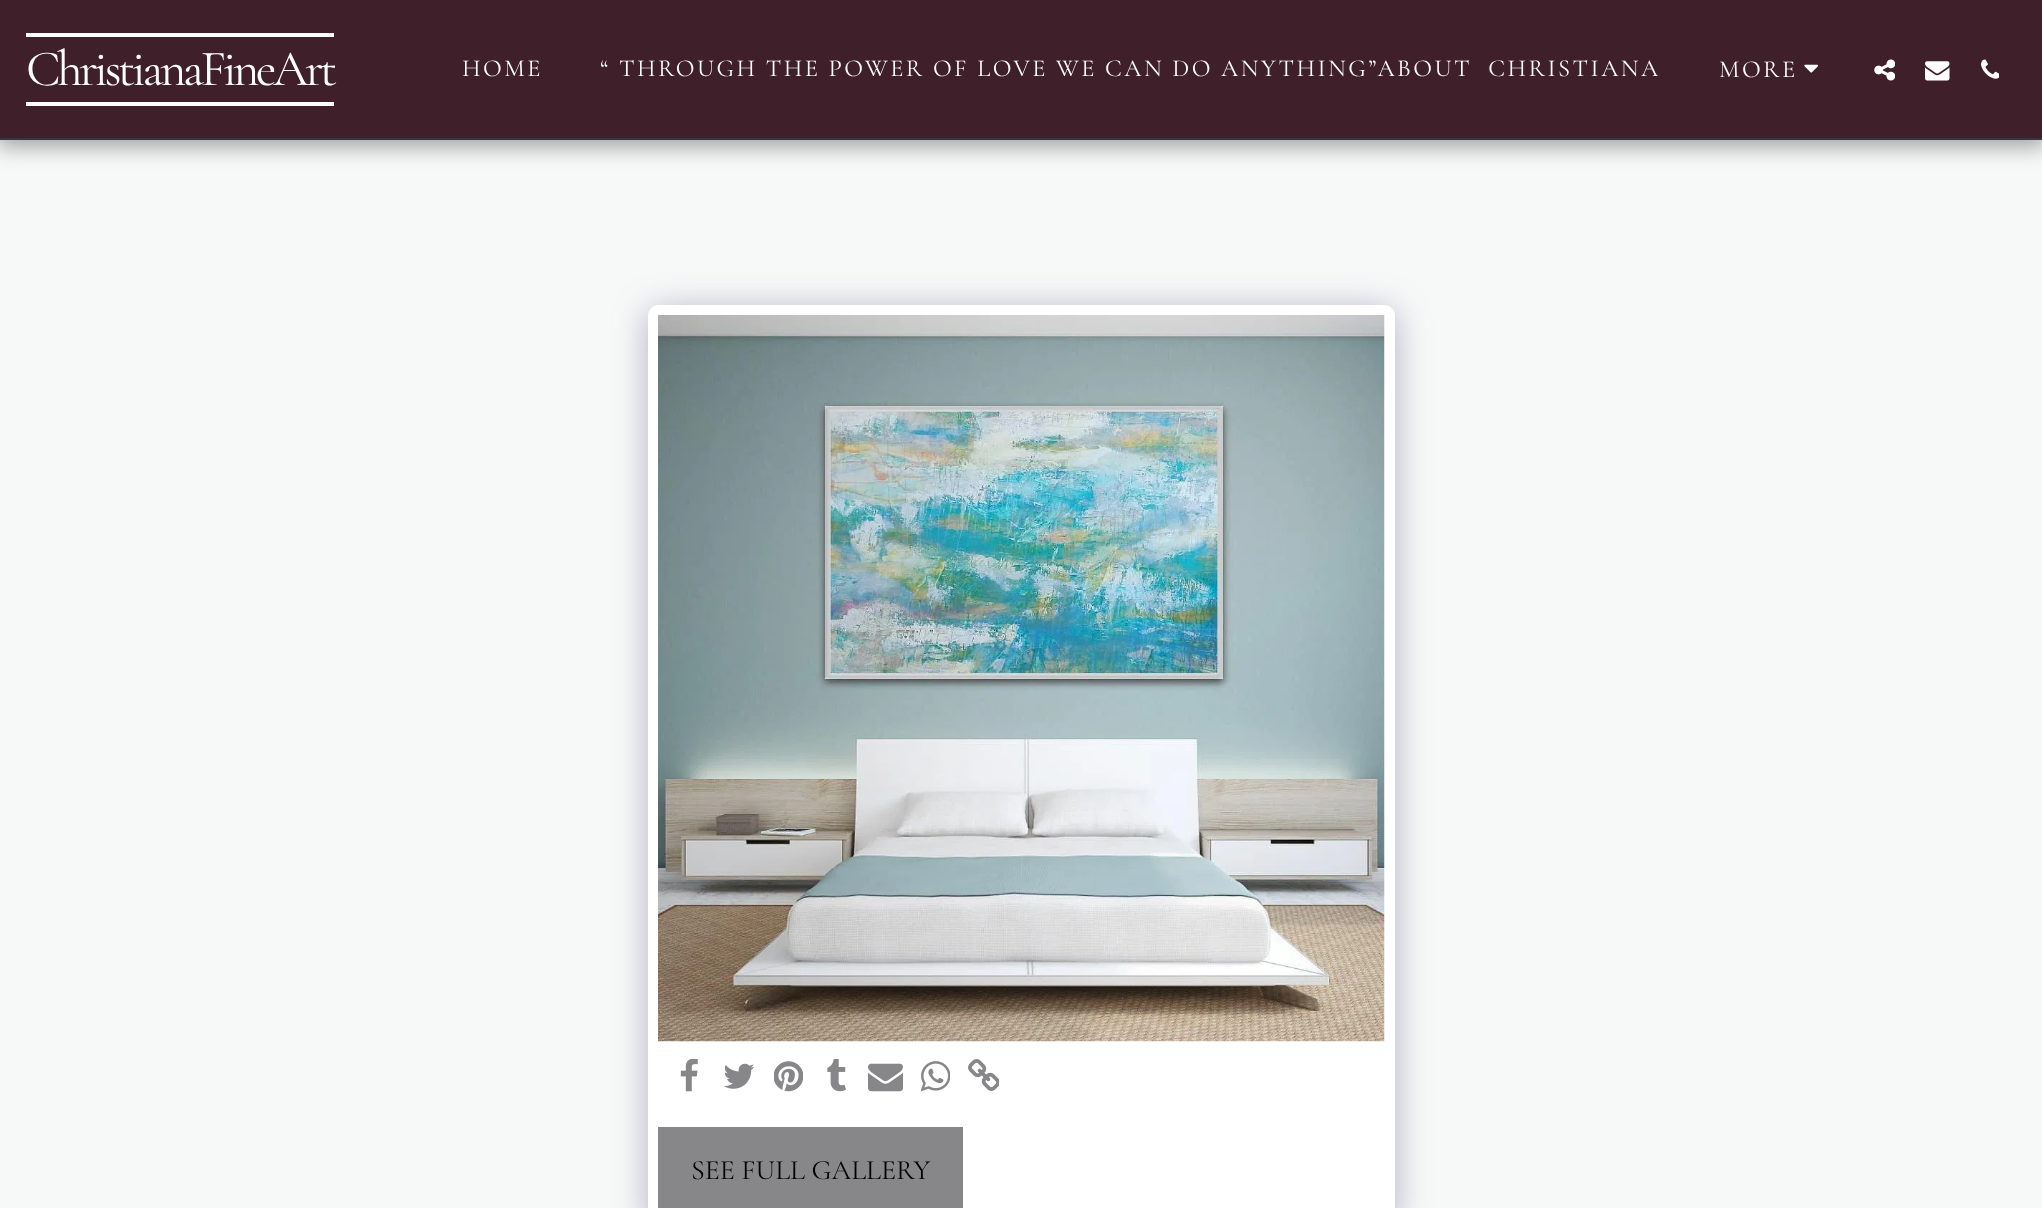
<svg xmlns="http://www.w3.org/2000/svg" xmlns:xlink="http://www.w3.org/1999/xlink" width="2042" height="1208" viewBox="0 0 2042 1208">
<style>
.cls-1{font:50.75px Cormorant Garamond;letter-spacing:-3.5px;fill:#ffffff}
.cls-2{font:24.5px Cormorant Garamond;letter-spacing:2.45px;fill:#ffffff}
.cls-3{font:28px Cormorant Garamond;fill:#000000}
</style>
<rect width="100%" height="100%" fill="#f7f9f8"/>
<rect fill="#000000" fill-opacity="0.35" filter="blur(10.5px)" x="-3" y="0" width="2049" height="147"/>
<rect fill="#3f202a" x="0" y="0" width="2042" height="138"/>
<rect fill="#303841" x="0" y="138" width="2042" height="2"/>
<rect fill="#ffffff" x="26" y="33" width="308" height="4"/>
<rect fill="#ffffff" x="26" y="102" width="308" height="4"/>
<image xlink:href="image0.png" x="1804" y="64" width="14" height="9"/>
<image xlink:href="image1.png" x="1874" y="59" width="21" height="22"/>
<image xlink:href="image2.png" x="1925" y="61" width="25" height="20"/>
<image xlink:href="image3.png" x="1981" y="59" width="18" height="20"/>
<rect fill="#4d3f7a" fill-opacity="0.4" filter="blur(17.5px)" x="648" y="310" width="747" height="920" rx="11"/>
<rect fill="#ffffff" x="648" y="305" width="747" height="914" rx="11"/>
<image xlink:href="image4.png" x="658" y="315" width="727" height="727"/>
<image xlink:href="image5.png" x="680" y="1059" width="18" height="33"/>
<image xlink:href="image6.png" x="724" y="1063" width="30" height="26"/>
<image xlink:href="image7.png" x="774" y="1061" width="29" height="31"/>
<image xlink:href="image8.png" x="827" y="1059" width="19" height="33"/>
<image xlink:href="image9.png" x="868" y="1063" width="35" height="29"/>
<image xlink:href="image10.png" x="921" y="1061" width="29" height="31"/>
<image xlink:href="image11.png" x="968" y="1059" width="31" height="32"/>
<rect fill="#878789" x="658" y="1127" width="305" height="81"/>
<text class="cls-1" x="26" y="85">ChristianaFineArt</text>
<text class="cls-2" x="462" y="76">HOME</text>
<text class="cls-2" xml:space="preserve" x="600" y="76">“ THROUGH THE POWER OF LOVE WE CAN DO ANYTHING”ABOUT  CHRISTIANA</text>
<text class="cls-2" x="1719" y="77">MORE</text>
<text class="cls-3" x="691" y="1179">SEE FULL GALLERY</text>
</svg>
